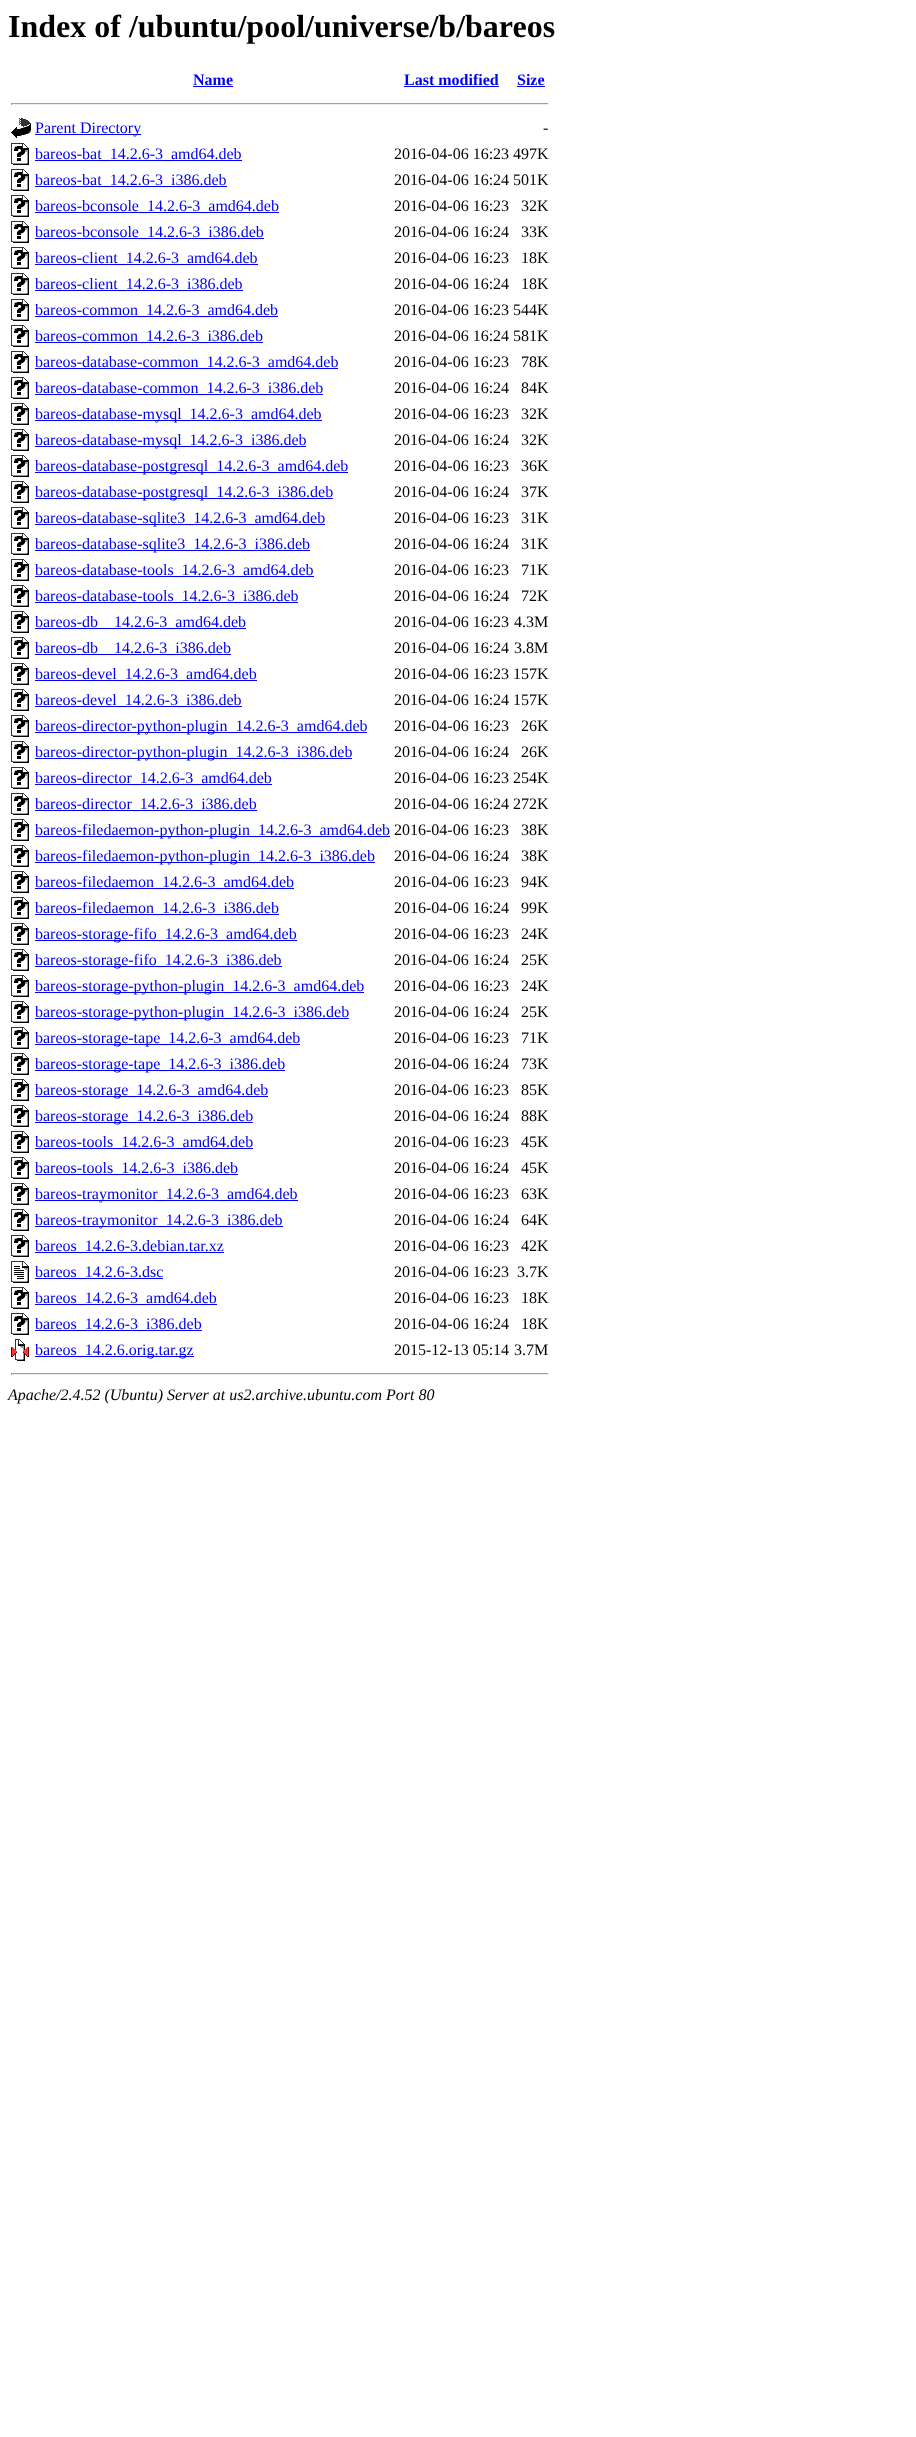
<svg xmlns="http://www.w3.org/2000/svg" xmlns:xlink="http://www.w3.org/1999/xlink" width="916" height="2437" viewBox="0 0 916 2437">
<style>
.cls-1{font:bold 32px Liberation Serif;fill:#000000}
.cls-2{font:bold 16px Liberation Serif;fill:#0000ee}
.cls-3{font:16px Liberation Serif;fill:#0000ee}
.cls-4{font:16px Liberation Serif;fill:#000000}
.cls-5{font:italic 16px Liberation Serif;fill:#000000}
</style>
<rect width="100%" height="100%" fill="#ffffff"/>
<rect fill="#0000ee" x="193" y="86" width="40" height="1"/>
<rect fill="#0000ee" x="404" y="86" width="95" height="1"/>
<rect fill="#0000ee" x="517" y="86" width="28" height="1"/>
<rect fill="#9f9f9f" x="11" y="103" width="538" height="1"/>
<rect fill="#eeeeee" x="548" y="103" width="1" height="2"/>
<rect fill="#eeeeee" x="11" y="104" width="538" height="1"/>
<rect fill="#9f9f9f" x="11" y="103" width="1" height="2"/>
<image xlink:href="image0.png" x="11" y="118" width="20" height="20"/>
<rect fill="#0000ee" x="35" y="134" width="106" height="1"/>
<image xlink:href="image1.png" x="11" y="143" width="18" height="22"/>
<rect fill="#0000ee" x="35" y="160" width="207" height="1"/>
<image xlink:href="image1.png" x="11" y="169" width="18" height="22"/>
<rect fill="#0000ee" x="35" y="186" width="192" height="1"/>
<image xlink:href="image1.png" x="11" y="195" width="18" height="22"/>
<rect fill="#0000ee" x="35" y="212" width="244" height="1"/>
<image xlink:href="image1.png" x="11" y="221" width="18" height="22"/>
<rect fill="#0000ee" x="35" y="238" width="229" height="1"/>
<image xlink:href="image1.png" x="11" y="247" width="18" height="22"/>
<rect fill="#0000ee" x="35" y="264" width="223" height="1"/>
<image xlink:href="image1.png" x="11" y="273" width="18" height="22"/>
<rect fill="#0000ee" x="35" y="290" width="208" height="1"/>
<image xlink:href="image1.png" x="11" y="299" width="18" height="22"/>
<rect fill="#0000ee" x="35" y="316" width="243" height="1"/>
<image xlink:href="image1.png" x="11" y="325" width="18" height="22"/>
<rect fill="#0000ee" x="35" y="342" width="228" height="1"/>
<image xlink:href="image1.png" x="11" y="351" width="18" height="22"/>
<rect fill="#0000ee" x="35" y="368" width="303" height="1"/>
<image xlink:href="image1.png" x="11" y="377" width="18" height="22"/>
<rect fill="#0000ee" x="35" y="394" width="288" height="1"/>
<image xlink:href="image1.png" x="11" y="403" width="18" height="22"/>
<rect fill="#0000ee" x="35" y="420" width="287" height="1"/>
<image xlink:href="image1.png" x="11" y="429" width="18" height="22"/>
<rect fill="#0000ee" x="35" y="446" width="271" height="1"/>
<image xlink:href="image1.png" x="11" y="455" width="18" height="22"/>
<rect fill="#0000ee" x="35" y="472" width="313" height="1"/>
<image xlink:href="image1.png" x="11" y="481" width="18" height="22"/>
<rect fill="#0000ee" x="35" y="498" width="298" height="1"/>
<image xlink:href="image1.png" x="11" y="507" width="18" height="22"/>
<rect fill="#0000ee" x="35" y="524" width="290" height="1"/>
<image xlink:href="image1.png" x="11" y="533" width="18" height="22"/>
<rect fill="#0000ee" x="35" y="550" width="275" height="1"/>
<image xlink:href="image1.png" x="11" y="559" width="18" height="22"/>
<rect fill="#0000ee" x="35" y="576" width="279" height="1"/>
<image xlink:href="image1.png" x="11" y="585" width="18" height="22"/>
<rect fill="#0000ee" x="35" y="602" width="263" height="1"/>
<image xlink:href="image1.png" x="11" y="611" width="18" height="22"/>
<rect fill="#0000ee" x="35" y="628" width="211" height="1"/>
<image xlink:href="image1.png" x="11" y="637" width="18" height="22"/>
<rect fill="#0000ee" x="35" y="654" width="196" height="1"/>
<image xlink:href="image1.png" x="11" y="663" width="18" height="22"/>
<rect fill="#0000ee" x="35" y="680" width="222" height="1"/>
<image xlink:href="image1.png" x="11" y="689" width="18" height="22"/>
<rect fill="#0000ee" x="35" y="706" width="207" height="1"/>
<image xlink:href="image1.png" x="11" y="715" width="18" height="22"/>
<rect fill="#0000ee" x="35" y="732" width="332" height="1"/>
<image xlink:href="image1.png" x="11" y="741" width="18" height="22"/>
<rect fill="#0000ee" x="35" y="758" width="317" height="1"/>
<image xlink:href="image1.png" x="11" y="767" width="18" height="22"/>
<rect fill="#0000ee" x="35" y="784" width="237" height="1"/>
<image xlink:href="image1.png" x="11" y="793" width="18" height="22"/>
<rect fill="#0000ee" x="35" y="810" width="222" height="1"/>
<image xlink:href="image1.png" x="11" y="819" width="18" height="22"/>
<rect fill="#0000ee" x="35" y="836" width="355" height="1"/>
<image xlink:href="image1.png" x="11" y="845" width="18" height="22"/>
<rect fill="#0000ee" x="35" y="862" width="340" height="1"/>
<image xlink:href="image1.png" x="11" y="871" width="18" height="22"/>
<rect fill="#0000ee" x="35" y="888" width="259" height="1"/>
<image xlink:href="image1.png" x="11" y="897" width="18" height="22"/>
<rect fill="#0000ee" x="35" y="914" width="244" height="1"/>
<image xlink:href="image1.png" x="11" y="923" width="18" height="22"/>
<rect fill="#0000ee" x="35" y="940" width="262" height="1"/>
<image xlink:href="image1.png" x="11" y="949" width="18" height="22"/>
<rect fill="#0000ee" x="35" y="966" width="247" height="1"/>
<image xlink:href="image1.png" x="11" y="975" width="18" height="22"/>
<rect fill="#0000ee" x="35" y="992" width="329" height="1"/>
<image xlink:href="image1.png" x="11" y="1001" width="18" height="22"/>
<rect fill="#0000ee" x="35" y="1018" width="314" height="1"/>
<image xlink:href="image1.png" x="11" y="1027" width="18" height="22"/>
<rect fill="#0000ee" x="35" y="1044" width="265" height="1"/>
<image xlink:href="image1.png" x="11" y="1053" width="18" height="22"/>
<rect fill="#0000ee" x="35" y="1070" width="250" height="1"/>
<image xlink:href="image1.png" x="11" y="1079" width="18" height="22"/>
<rect fill="#0000ee" x="35" y="1096" width="233" height="1"/>
<image xlink:href="image1.png" x="11" y="1105" width="18" height="22"/>
<rect fill="#0000ee" x="35" y="1122" width="218" height="1"/>
<image xlink:href="image1.png" x="11" y="1131" width="18" height="22"/>
<rect fill="#0000ee" x="35" y="1148" width="218" height="1"/>
<image xlink:href="image1.png" x="11" y="1157" width="18" height="22"/>
<rect fill="#0000ee" x="35" y="1174" width="203" height="1"/>
<image xlink:href="image1.png" x="11" y="1183" width="18" height="22"/>
<rect fill="#0000ee" x="35" y="1200" width="263" height="1"/>
<image xlink:href="image1.png" x="11" y="1209" width="18" height="22"/>
<rect fill="#0000ee" x="35" y="1226" width="248" height="1"/>
<image xlink:href="image1.png" x="11" y="1235" width="18" height="22"/>
<rect fill="#0000ee" x="35" y="1252" width="189" height="1"/>
<image xlink:href="image2.png" x="11" y="1261" width="18" height="22"/>
<rect fill="#0000ee" x="35" y="1278" width="128" height="1"/>
<image xlink:href="image1.png" x="11" y="1287" width="18" height="22"/>
<rect fill="#0000ee" x="35" y="1304" width="182" height="1"/>
<image xlink:href="image1.png" x="11" y="1313" width="18" height="22"/>
<rect fill="#0000ee" x="35" y="1330" width="167" height="1"/>
<image xlink:href="image3.png" x="11" y="1339" width="18" height="22"/>
<rect fill="#0000ee" x="35" y="1356" width="159" height="1"/>
<rect fill="#9f9f9f" x="11" y="1373" width="538" height="1"/>
<rect fill="#eeeeee" x="548" y="1373" width="1" height="2"/>
<rect fill="#eeeeee" x="11" y="1374" width="538" height="1"/>
<rect fill="#9f9f9f" x="11" y="1373" width="1" height="2"/>
<text class="cls-1" x="8" y="37">Index of /ubuntu/pool/universe/b/bareos</text>
<text class="cls-2" x="193" y="85">Name</text>
<text class="cls-2" x="404" y="85">Last modified</text>
<text class="cls-2" x="517" y="85">Size</text>
<text class="cls-3" x="35" y="133">Parent Directory</text>
<text class="cls-4" x="543" y="133">-</text>
<text class="cls-3" x="35" y="159">bareos-bat_14.2.6-3_amd64.deb</text>
<text class="cls-4" x="394" y="159">2016-04-06 16:23 497K</text>
<text class="cls-3" x="35" y="185">bareos-bat_14.2.6-3_i386.deb</text>
<text class="cls-4" x="394" y="185">2016-04-06 16:24 501K</text>
<text class="cls-3" x="35" y="211">bareos-bconsole_14.2.6-3_amd64.deb</text>
<text class="cls-4" x="394" y="211">2016-04-06 16:23</text>
<text class="cls-4" x="521" y="211">32K</text>
<text class="cls-3" x="35" y="237">bareos-bconsole_14.2.6-3_i386.deb</text>
<text class="cls-4" x="394" y="237">2016-04-06 16:24</text>
<text class="cls-4" x="521" y="237">33K</text>
<text class="cls-3" x="35" y="263">bareos-client_14.2.6-3_amd64.deb</text>
<text class="cls-4" x="394" y="263">2016-04-06 16:23</text>
<text class="cls-4" x="521" y="263">18K</text>
<text class="cls-3" x="35" y="289">bareos-client_14.2.6-3_i386.deb</text>
<text class="cls-4" x="394" y="289">2016-04-06 16:24</text>
<text class="cls-4" x="521" y="289">18K</text>
<text class="cls-3" x="35" y="315">bareos-common_14.2.6-3_amd64.deb</text>
<text class="cls-4" x="394" y="315">2016-04-06 16:23 544K</text>
<text class="cls-3" x="35" y="341">bareos-common_14.2.6-3_i386.deb</text>
<text class="cls-4" x="394" y="341">2016-04-06 16:24 581K</text>
<text class="cls-3" x="35" y="367">bareos-database-common_14.2.6-3_amd64.deb</text>
<text class="cls-4" x="394" y="367">2016-04-06 16:23</text>
<text class="cls-4" x="521" y="367">78K</text>
<text class="cls-3" x="35" y="393">bareos-database-common_14.2.6-3_i386.deb</text>
<text class="cls-4" x="394" y="393">2016-04-06 16:24</text>
<text class="cls-4" x="521" y="393">84K</text>
<text class="cls-3" x="35" y="419">bareos-database-mysql_14.2.6-3_amd64.deb</text>
<text class="cls-4" x="394" y="419">2016-04-06 16:23</text>
<text class="cls-4" x="521" y="419">32K</text>
<text class="cls-3" x="35" y="445">bareos-database-mysql_14.2.6-3_i386.deb</text>
<text class="cls-4" x="394" y="445">2016-04-06 16:24</text>
<text class="cls-4" x="521" y="445">32K</text>
<text class="cls-3" x="35" y="471">bareos-database-postgresql_14.2.6-3_amd64.deb</text>
<text class="cls-4" x="394" y="471">2016-04-06 16:23</text>
<text class="cls-4" x="521" y="471">36K</text>
<text class="cls-3" x="35" y="497">bareos-database-postgresql_14.2.6-3_i386.deb</text>
<text class="cls-4" x="394" y="497">2016-04-06 16:24</text>
<text class="cls-4" x="521" y="497">37K</text>
<text class="cls-3" x="35" y="523">bareos-database-sqlite3_14.2.6-3_amd64.deb</text>
<text class="cls-4" x="394" y="523">2016-04-06 16:23</text>
<text class="cls-4" x="521" y="523">31K</text>
<text class="cls-3" x="35" y="549">bareos-database-sqlite3_14.2.6-3_i386.deb</text>
<text class="cls-4" x="394" y="549">2016-04-06 16:24</text>
<text class="cls-4" x="521" y="549">31K</text>
<text class="cls-3" x="35" y="575">bareos-database-tools_14.2.6-3_amd64.deb</text>
<text class="cls-4" x="394" y="575">2016-04-06 16:23</text>
<text class="cls-4" x="521" y="575">71K</text>
<text class="cls-3" x="35" y="601">bareos-database-tools_14.2.6-3_i386.deb</text>
<text class="cls-4" x="394" y="601">2016-04-06 16:24</text>
<text class="cls-4" x="521" y="601">72K</text>
<text class="cls-3" x="35" y="627">bareos-db</text>
<text class="cls-3" x="114" y="627">14.2.6-3_amd64.deb</text>
<text class="cls-4" x="394" y="627">2016-04-06 16:23</text>
<text class="cls-4" x="514" y="627">4.3M</text>
<text class="cls-3" x="35" y="653">bareos-db</text>
<text class="cls-3" x="114" y="653">14.2.6-3_i386.deb</text>
<text class="cls-4" x="394" y="653">2016-04-06 16:24</text>
<text class="cls-4" x="514" y="653">3.8M</text>
<text class="cls-3" x="35" y="679">bareos-devel_14.2.6-3_amd64.deb</text>
<text class="cls-4" x="394" y="679">2016-04-06 16:23 157K</text>
<text class="cls-3" x="35" y="705">bareos-devel_14.2.6-3_i386.deb</text>
<text class="cls-4" x="394" y="705">2016-04-06 16:24 157K</text>
<text class="cls-3" x="35" y="731">bareos-director-python-plugin_14.2.6-3_amd64.deb</text>
<text class="cls-4" x="394" y="731">2016-04-06 16:23</text>
<text class="cls-4" x="521" y="731">26K</text>
<text class="cls-3" x="35" y="757">bareos-director-python-plugin_14.2.6-3_i386.deb</text>
<text class="cls-4" x="394" y="757">2016-04-06 16:24</text>
<text class="cls-4" x="521" y="757">26K</text>
<text class="cls-3" x="35" y="783">bareos-director_14.2.6-3_amd64.deb</text>
<text class="cls-4" x="394" y="783">2016-04-06 16:23 254K</text>
<text class="cls-3" x="35" y="809">bareos-director_14.2.6-3_i386.deb</text>
<text class="cls-4" x="394" y="809">2016-04-06 16:24 272K</text>
<text class="cls-3" x="35" y="835">bareos-filedaemon-python-plugin_14.2.6-3_amd64.deb</text>
<text class="cls-4" x="394" y="835">2016-04-06 16:23</text>
<text class="cls-4" x="521" y="835">38K</text>
<text class="cls-3" x="35" y="861">bareos-filedaemon-python-plugin_14.2.6-3_i386.deb</text>
<text class="cls-4" x="394" y="861">2016-04-06 16:24</text>
<text class="cls-4" x="521" y="861">38K</text>
<text class="cls-3" x="35" y="887">bareos-filedaemon_14.2.6-3_amd64.deb</text>
<text class="cls-4" x="394" y="887">2016-04-06 16:23</text>
<text class="cls-4" x="521" y="887">94K</text>
<text class="cls-3" x="35" y="913">bareos-filedaemon_14.2.6-3_i386.deb</text>
<text class="cls-4" x="394" y="913">2016-04-06 16:24</text>
<text class="cls-4" x="521" y="913">99K</text>
<text class="cls-3" x="35" y="939">bareos-storage-fifo_14.2.6-3_amd64.deb</text>
<text class="cls-4" x="394" y="939">2016-04-06 16:23</text>
<text class="cls-4" x="521" y="939">24K</text>
<text class="cls-3" x="35" y="965">bareos-storage-fifo_14.2.6-3_i386.deb</text>
<text class="cls-4" x="394" y="965">2016-04-06 16:24</text>
<text class="cls-4" x="521" y="965">25K</text>
<text class="cls-3" x="35" y="991">bareos-storage-python-plugin_14.2.6-3_amd64.deb</text>
<text class="cls-4" x="394" y="991">2016-04-06 16:23</text>
<text class="cls-4" x="521" y="991">24K</text>
<text class="cls-3" x="35" y="1017">bareos-storage-python-plugin_14.2.6-3_i386.deb</text>
<text class="cls-4" x="394" y="1017">2016-04-06 16:24</text>
<text class="cls-4" x="521" y="1017">25K</text>
<text class="cls-3" x="35" y="1043">bareos-storage-tape_14.2.6-3_amd64.deb</text>
<text class="cls-4" x="394" y="1043">2016-04-06 16:23</text>
<text class="cls-4" x="521" y="1043">71K</text>
<text class="cls-3" x="35" y="1069">bareos-storage-tape_14.2.6-3_i386.deb</text>
<text class="cls-4" x="394" y="1069">2016-04-06 16:24</text>
<text class="cls-4" x="521" y="1069">73K</text>
<text class="cls-3" x="35" y="1095">bareos-storage_14.2.6-3_amd64.deb</text>
<text class="cls-4" x="394" y="1095">2016-04-06 16:23</text>
<text class="cls-4" x="521" y="1095">85K</text>
<text class="cls-3" x="35" y="1121">bareos-storage_14.2.6-3_i386.deb</text>
<text class="cls-4" x="394" y="1121">2016-04-06 16:24</text>
<text class="cls-4" x="521" y="1121">88K</text>
<text class="cls-3" x="35" y="1147">bareos-tools_14.2.6-3_amd64.deb</text>
<text class="cls-4" x="394" y="1147">2016-04-06 16:23</text>
<text class="cls-4" x="521" y="1147">45K</text>
<text class="cls-3" x="35" y="1173">bareos-tools_14.2.6-3_i386.deb</text>
<text class="cls-4" x="394" y="1173">2016-04-06 16:24</text>
<text class="cls-4" x="521" y="1173">45K</text>
<text class="cls-3" x="35" y="1199">bareos-traymonitor_14.2.6-3_amd64.deb</text>
<text class="cls-4" x="394" y="1199">2016-04-06 16:23</text>
<text class="cls-4" x="521" y="1199">63K</text>
<text class="cls-3" x="35" y="1225">bareos-traymonitor_14.2.6-3_i386.deb</text>
<text class="cls-4" x="394" y="1225">2016-04-06 16:24</text>
<text class="cls-4" x="521" y="1225">64K</text>
<text class="cls-3" x="35" y="1251">bareos_14.2.6-3.debian.tar.xz</text>
<text class="cls-4" x="394" y="1251">2016-04-06 16:23</text>
<text class="cls-4" x="521" y="1251">42K</text>
<text class="cls-3" x="35" y="1277">bareos_14.2.6-3.dsc</text>
<text class="cls-4" x="394" y="1277">2016-04-06 16:23</text>
<text class="cls-4" x="517" y="1277">3.7K</text>
<text class="cls-3" x="35" y="1303">bareos_14.2.6-3_amd64.deb</text>
<text class="cls-4" x="394" y="1303">2016-04-06 16:23</text>
<text class="cls-4" x="521" y="1303">18K</text>
<text class="cls-3" x="35" y="1329">bareos_14.2.6-3_i386.deb</text>
<text class="cls-4" x="394" y="1329">2016-04-06 16:24</text>
<text class="cls-4" x="521" y="1329">18K</text>
<text class="cls-3" x="35" y="1355">bareos_14.2.6.orig.tar.gz</text>
<text class="cls-4" x="394" y="1355">2015-12-13 05:14</text>
<text class="cls-4" x="514" y="1355">3.7M</text>
<text class="cls-5" x="8" y="1400">Apache/2.4.52 (Ubuntu) Server at us2.archive.ubuntu.com Port 80</text>
</svg>
